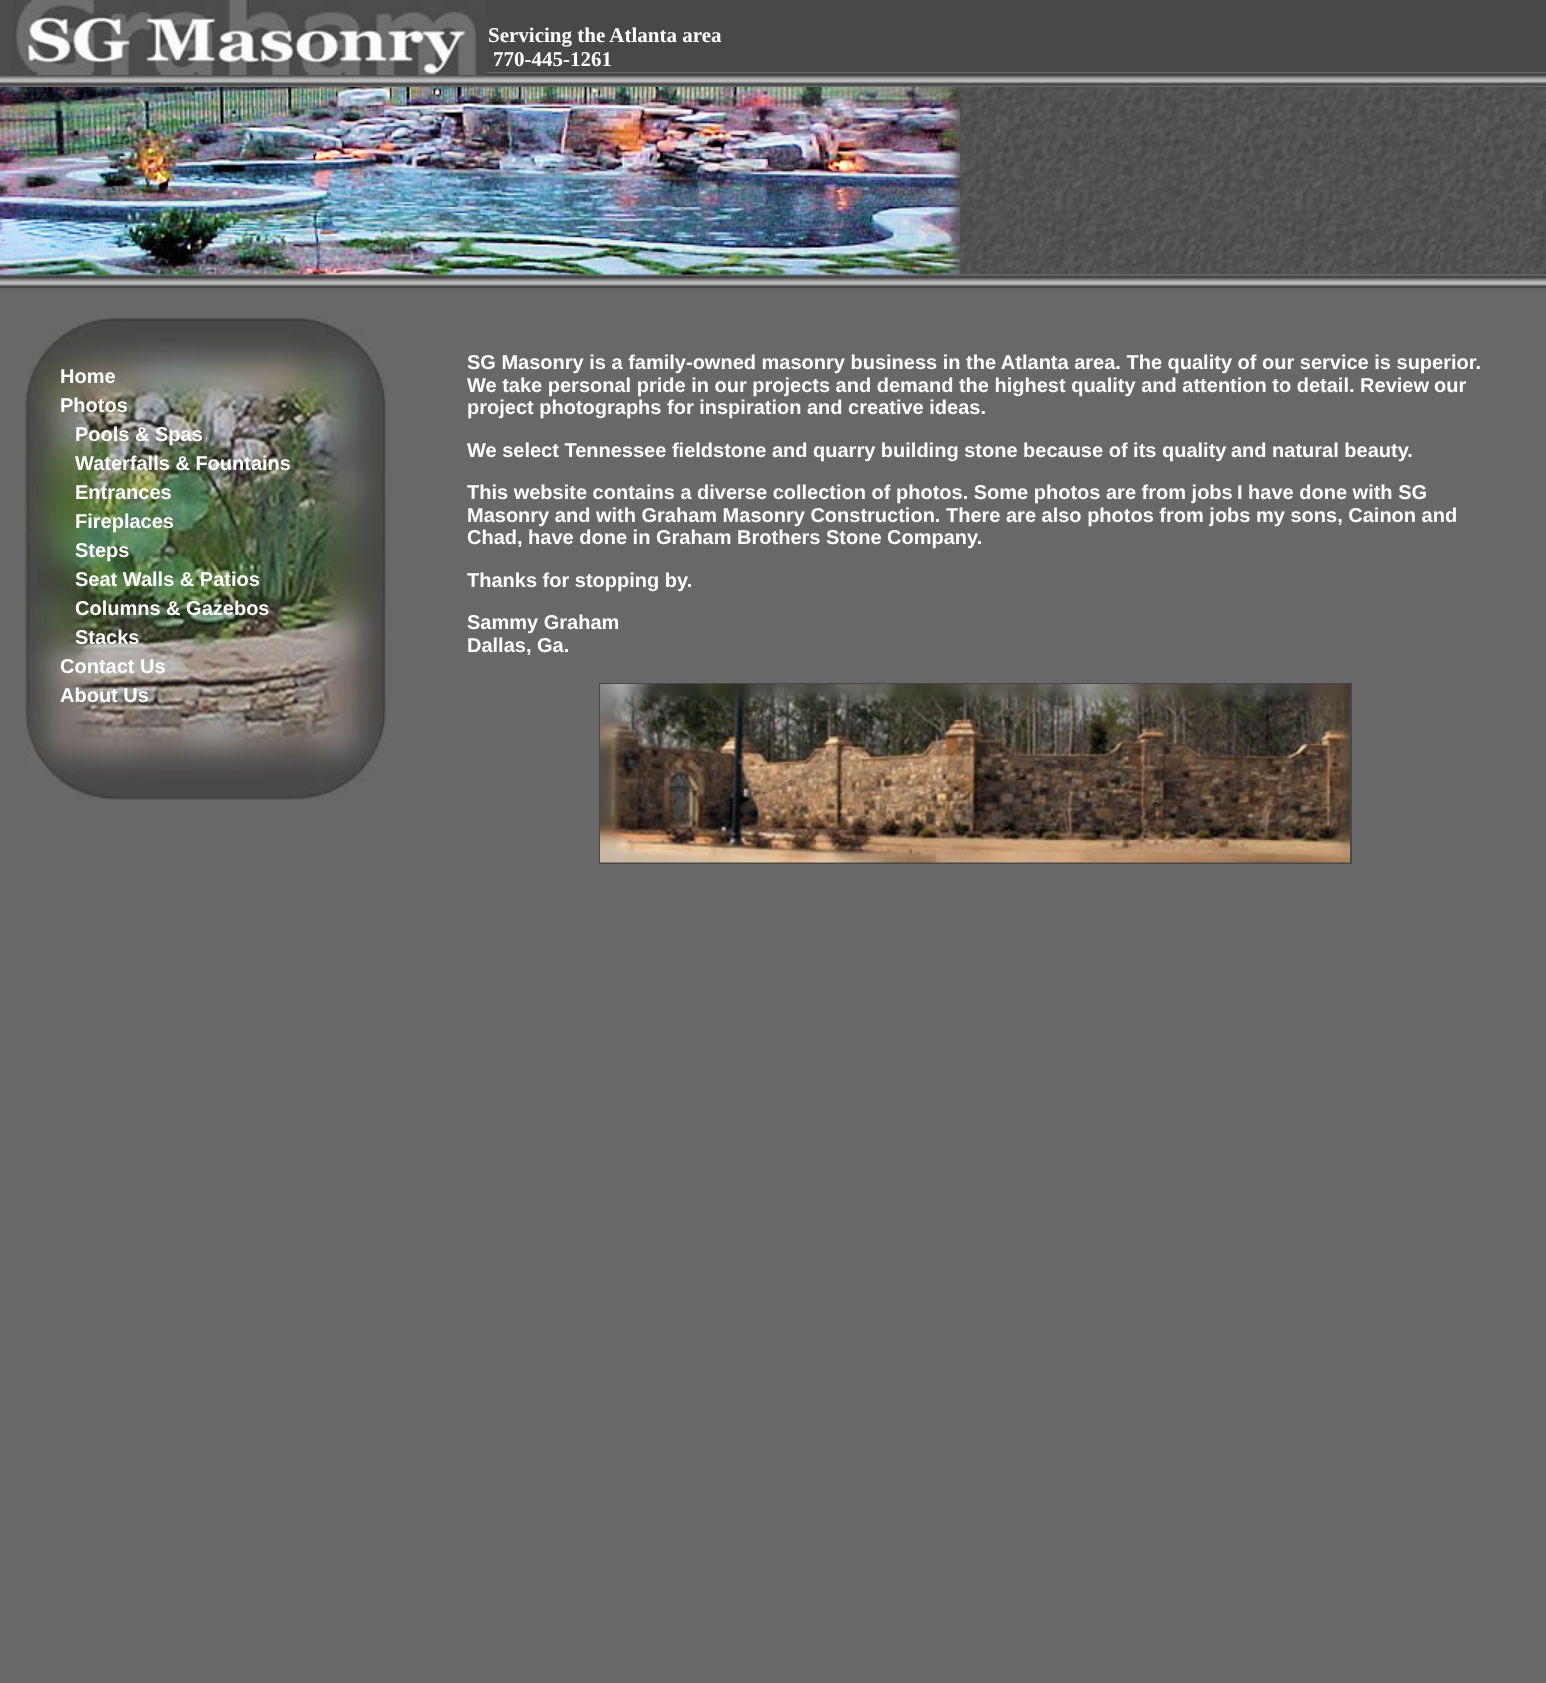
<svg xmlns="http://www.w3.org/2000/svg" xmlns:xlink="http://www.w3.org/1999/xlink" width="1546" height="1683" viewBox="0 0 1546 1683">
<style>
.cls-1{font:bold 21px Liberation Serif;fill:#ffffff}
.cls-2{font:bold 20px Liberation Sans;fill:#ffffff}
</style>
<rect width="100%" height="100%" fill="#686868"/>
<rect fill="#484848" x="487" y="0" width="1059" height="72"/>
<image xlink:href="image1.png" x="0" y="73" width="1546" height="13"/>
<image xlink:href="image0.png" x="0" y="0" width="488" height="75"/>
<image xlink:href="image2.png" x="0" y="87" width="1546" height="188"/>
<image xlink:href="image4.png" x="0" y="274" width="1546" height="15"/>
<image xlink:href="image3.png" x="0" y="87" width="960" height="188"/>
<image xlink:href="image5.png" x="24" y="318" width="362" height="482"/>
<rect fill="none" stroke="#484848" stroke-width="2" x="600" y="684" width="751" height="179"/>
<image xlink:href="image6.png" x="600" y="684" width="750" height="179"/>
<text class="cls-1" x="488" y="42">Servicing the Atlanta area</text>
<text class="cls-1" x="493" y="66">770-445-1261</text>
<text class="cls-2"><tspan x="60" y="383">Home</tspan><tspan x="60" y="412">Photos</tspan></text>
<text class="cls-2"><tspan x="75" y="441">Pools &amp; Spas</tspan><tspan x="75" y="470">Waterfalls &amp; Fountains</tspan><tspan x="75" y="499">Entrances</tspan><tspan x="75" y="528">Fireplaces</tspan><tspan x="75" y="557">Steps</tspan><tspan x="75" y="586">Seat Walls &amp; Patios</tspan><tspan x="75" y="615">Columns &amp; Gazebos</tspan><tspan x="75" y="644">Stacks</tspan></text>
<text class="cls-2"><tspan x="60" y="673">Contact Us</tspan><tspan x="60" y="702">About Us</tspan></text>
<text class="cls-2"><tspan x="467" y="369">SG Masonry is a family-owned masonry business in the Atlanta area. The quality of our service is superior.</tspan><tspan x="467" y="392">We take personal pride in our projects and demand the highest quality and attention to detail. Review</tspan></text>
<text class="cls-2" x="1434" y="392">our</text>
<text class="cls-2" x="467" y="414">project photographs for inspiration and creative ideas.</text>
<text class="cls-2" x="467" y="457">We select Tennessee fieldstone and quarry building stone because of its quality</text>
<text class="cls-2" x="1231" y="457">and natural beauty.</text>
<text class="cls-2" x="467" y="499">This website contains a diverse collection of photos. Some photos are from jobs</text>
<text class="cls-2" x="1237" y="499">I have done with SG</text>
<text class="cls-2"><tspan x="467" y="522">Masonry and with Graham Masonry Construction. There are also photos from jobs my sons, Cainon and</tspan><tspan x="467" y="544">Chad, have done in Graham Brothers Stone Company.</tspan></text>
<text class="cls-2" x="467" y="587">Thanks for stopping by.</text>
<text class="cls-2"><tspan x="467" y="629">Sammy Graham</tspan><tspan x="467" y="652">Dallas, Ga.</tspan></text>
</svg>
